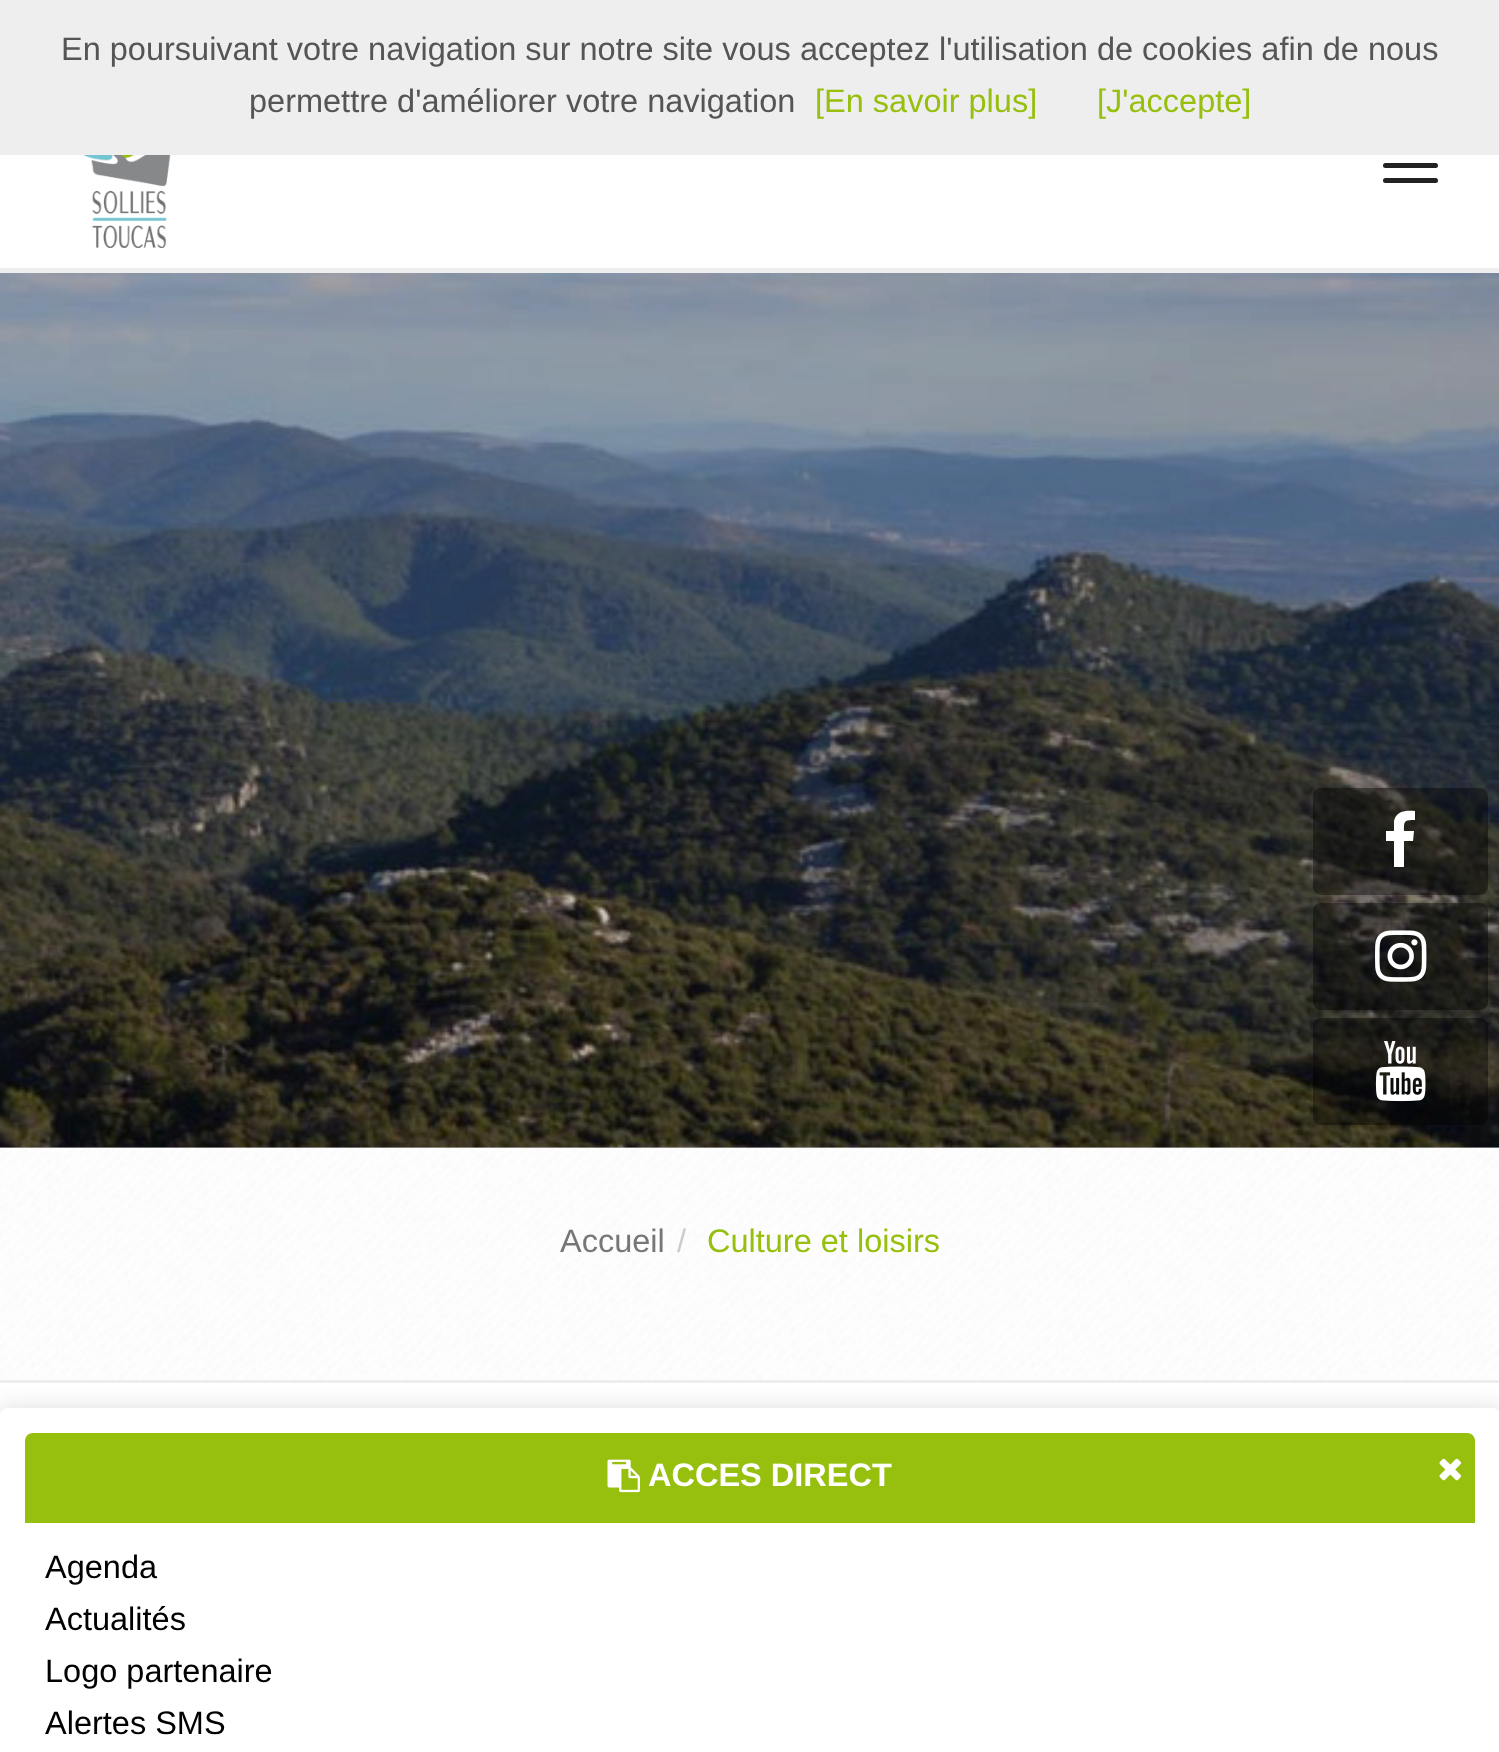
<svg xmlns="http://www.w3.org/2000/svg" xmlns:xlink="http://www.w3.org/1999/xlink" width="1499" height="1752" viewBox="0 0 1499 1752">
<style>
.cls-1{font:32.5px Liberation Sans;fill:#555555}
.cls-2{font:32.5px Liberation Sans;fill:#97bf0e}
.cls-3{font:32.5px Liberation Sans;fill:#777777}
.cls-4{font:32.5px Liberation Sans;fill:#cccccc}
.cls-5{font:bold 32.5px Liberation Sans;fill:#ffffff}
.cls-6{font:32.5px Liberation Sans;fill:#000000}
</style>
<defs>
<clipPath id="clip1"><path d="M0 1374H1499V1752H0ZM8 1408H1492C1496.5 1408 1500 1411.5 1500 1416V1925C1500 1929.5 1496.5 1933 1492 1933H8C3.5 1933 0 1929.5 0 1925V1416C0 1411.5 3.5 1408 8 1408Z" clip-rule="evenodd"/></clipPath>
</defs>
<rect width="100%" height="100%" fill="#ffffff"/>
<rect fill="#cccccc" x="0" y="1147" width="1499" height="1"/>
<rect fill="#eeeeee" x="0" y="0" width="1499" height="155"/>
<rect fill="#eeeeee" x="0" y="268" width="1499" height="5"/>
<image xlink:href="image0.png" x="60" y="155" width="115" height="93"/>
<rect fill="#222222" x="1383" y="163" width="55" height="5" rx="2.5"/>
<rect fill="#222222" x="1383" y="178" width="55" height="5" rx="2.5"/>
<image xlink:href="image1.png" x="0" y="273" width="1499" height="875"/>
<rect fill="#000000" fill-opacity="0.4" x="1313" y="788" width="175" height="107" rx="8"/>
<path fill="#ffffff" d="M1415 811V820C1404 820 1404 821 1404 831H1414L1413 841H1404V867H1394V841H1386V831H1394V821C1396 811 1406 810 1415 811Z"/>
<rect fill="#000000" fill-opacity="0.4" x="1313" y="903" width="175" height="107" rx="8"/>
<image xlink:href="image2.png" x="1375" y="930" width="52" height="52"/>
<rect fill="#000000" fill-opacity="0.4" x="1313" y="1018" width="175" height="107" rx="8"/>
<image xlink:href="image3.png" x="1375" y="1041" width="51" height="61"/>
<image xlink:href="image4.png" x="0" y="1148" width="1499" height="232"/>
<rect fill="#eeeeee" x="0" y="1380" width="1499" height="3"/>
<g clip-path="url(#clip1)">
<rect fill="#000000" fill-opacity="0.1" filter="blur(10px)" x="-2" y="1405" width="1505" height="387" rx="10"/>
</g>
<path fill="#97bf0d" d="M33 1433H1467C1471.5 1433 1475 1436.5 1475 1441V1523H25V1441C25 1436.5 28.5 1433 33 1433Z"/>
<image xlink:href="image5.png" x="607" y="1459" width="33" height="34"/>
<image xlink:href="image6.png" x="1439" y="1458" width="22" height="23"/>
<text class="cls-1" x="61" y="60">En poursuivant votre navigation sur notre site vous acceptez l'utilisation de cookies afin de nous</text>
<text class="cls-1" x="249" y="112">permettre d'améliorer votre navigation</text>
<text class="cls-2" x="815" y="112">[En savoir plus]</text>
<text class="cls-2" x="1097" y="112">[J'accepte]</text>
<text class="cls-3" x="560" y="1252">Accueil</text>
<text class="cls-4" x="677" y="1252">/</text>
<text class="cls-2" x="707" y="1252">Culture et loisirs</text>
<text class="cls-5" x="648" y="1486">ACCES DIRECT</text>
<text class="cls-6"><tspan x="45" y="1578">Agenda</tspan><tspan x="45" y="1630">Actualités</tspan><tspan x="45" y="1682">Logo partenaire</tspan><tspan x="45" y="1734">Alertes SMS</tspan></text>
</svg>
